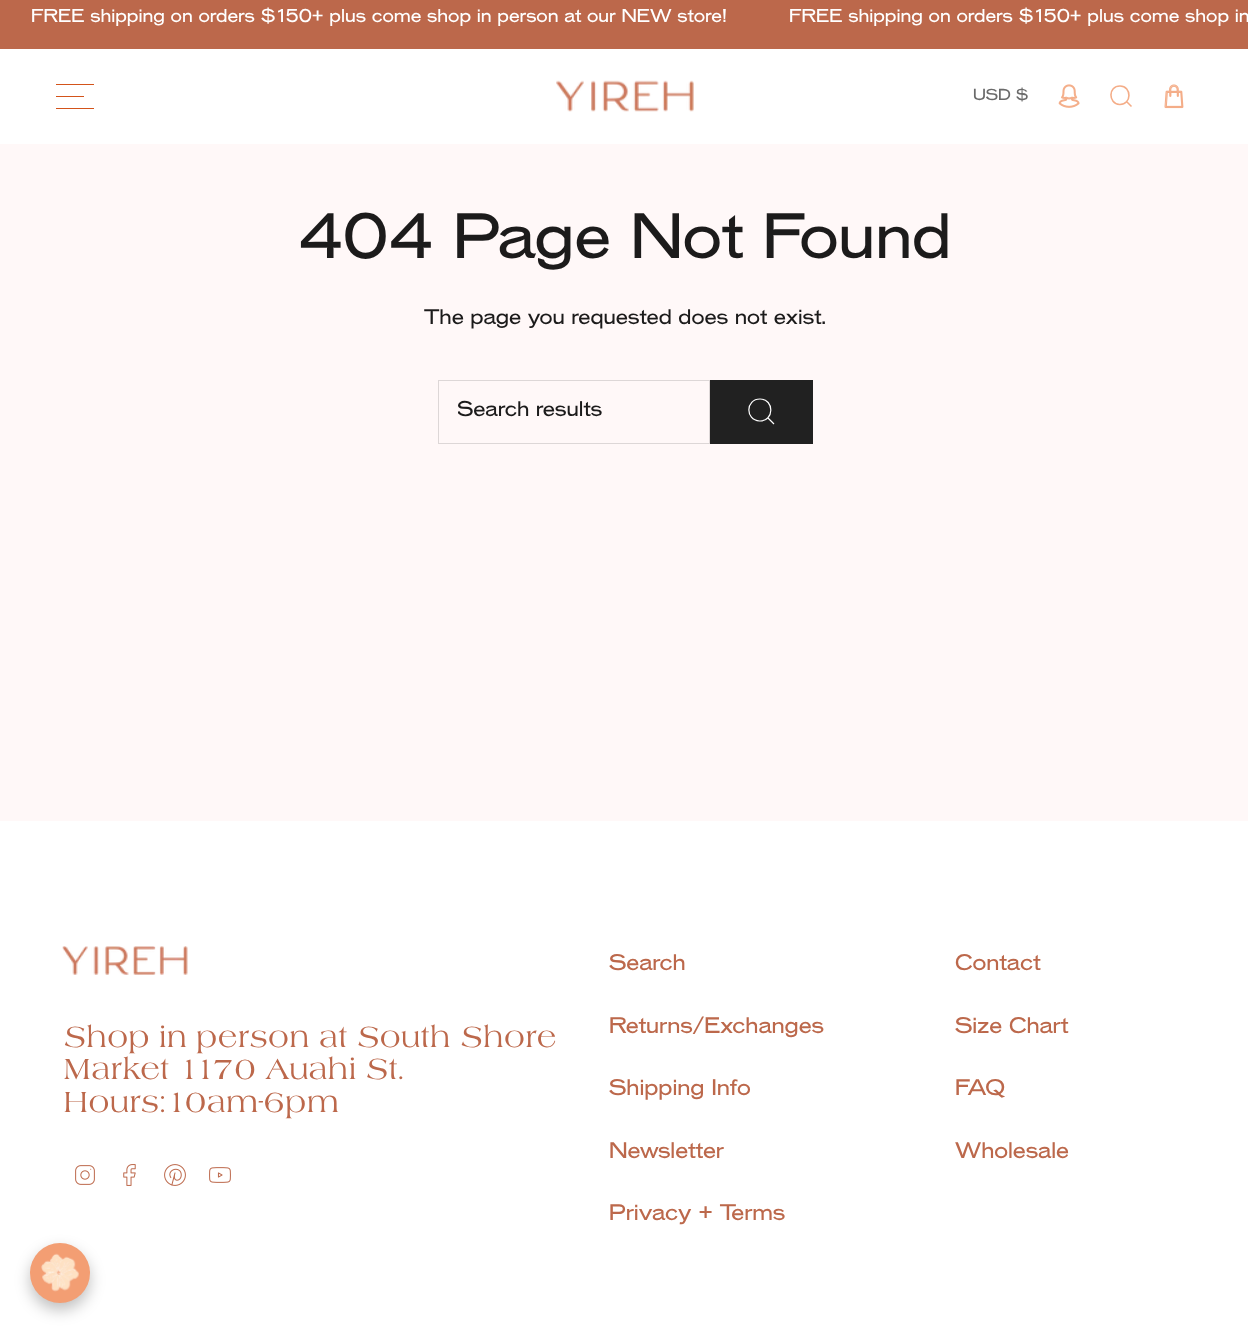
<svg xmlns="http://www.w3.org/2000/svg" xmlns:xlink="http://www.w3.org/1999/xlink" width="1248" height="1332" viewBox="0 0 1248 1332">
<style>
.cls-1{font:500 17.5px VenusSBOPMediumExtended;fill:#ffffff}
.cls-2{font:500 15px VenusSBOPMediumExtended;fill:#6a6a6a}
.cls-3{font:500 60px VenusSBOPMediumExtended;fill:#1c1b1b}
.cls-4{font:500 20px VenusSBOPMediumExtended;fill:#1c1b1b}
.cls-5{font:30px 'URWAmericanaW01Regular';fill:#bc684b}
.cls-6{font:500 21.25px VenusSBOPMediumExtended;fill:#bc684b}
</style>
<defs>
<clipPath id="clip1"><rect x="458" y="400" width="232" height="24"/></clipPath>
</defs>
<rect width="100%" height="100%" fill="#fff8f8"/>
<rect fill="#bc684b" x="0" y="0" width="1248" height="49"/>
<rect fill="#ffffff" x="0" y="49" width="1248" height="95"/>
<rect fill="#d3531a" x="56" y="84" width="38" height="1"/>
<rect fill="#d3531a" x="56" y="96" width="28" height="1"/>
<rect fill="#d3531a" x="56" y="108" width="38" height="1"/>
<image xlink:href="image0.png" x="556" y="80" width="138" height="32"/>
<image xlink:href="image1.png" x="1058" y="84" width="22" height="24"/>
<path fill="none" stroke="#f4ad88" stroke-width="1.6" d="M1120 86C1132 86 1132 105 1119.5 104.5C1108 103.5 1108 86 1120 86ZM1126.5 101.5L1131.5 106.5"/>
<image xlink:href="image2.png" x="1164" y="84" width="20" height="25"/>
<rect fill="none" stroke="#ddd7d7" x="438.5" y="380.5" width="271" height="63"/>
<rect fill="#212121" x="710" y="380" width="103" height="64"/>
<path fill="none" stroke="#ffffff" stroke-width="1.2" d="M760 399C774.5 399 774.5 421.5 759.5 421C745 420 745.5 399 760 399ZM767.5 417.5L774 424"/>
<rect fill="#ffffff" x="0" y="821" width="1248" height="511"/>
<image xlink:href="image3.png" x="62" y="946" width="126" height="29"/>
<image xlink:href="image4.png" x="75" y="1165" width="20" height="20"/>
<image xlink:href="image5.png" x="123" y="1164" width="13" height="22"/>
<image xlink:href="image6.png" x="164" y="1164" width="22" height="22"/>
<image xlink:href="image7.png" x="209" y="1167" width="22" height="16"/>
<rect fill="#000000" fill-opacity="0.25" filter="blur(7.5px)" x="30" y="1250" width="60" height="60" rx="30"/>
<circle fill="#f39e73" cx="60" cy="1273" r="30"/>
<image xlink:href="image8.png" x="41" y="1253" width="38" height="39"/>
<text class="cls-1" x="31" y="22">FREE shipping on orders $150+ plus come shop in person at our NEW store!</text>
<text class="cls-1" x="789" y="22">FREE shipping on orders $150+ plus come shop in</text>
<text class="cls-2" x="973" y="100">USD $</text>
<text class="cls-3" x="298" y="258">404 Page Not Found</text>
<text class="cls-4" x="424" y="324">The page you requested does not exist.</text>
<g clip-path="url(#clip1)">
<text class="cls-4" x="457" y="416">Search results</text>
</g>
<text class="cls-5"><tspan x="63" y="1047">Shop in person at South Shore</tspan><tspan x="63" y="1079">Market 1170 Auahi St.</tspan><tspan x="63" y="1112">Hours:10am-6pm</tspan></text>
<text class="cls-6" x="609" y="970">Search</text>
<text class="cls-6" x="955" y="970">Contact</text>
<text class="cls-6" x="609" y="1033">Returns/Exchanges</text>
<text class="cls-6" x="955" y="1033">Size Chart</text>
<text class="cls-6" x="609" y="1095">Shipping Info</text>
<text class="cls-6" x="955" y="1095">FAQ</text>
<text class="cls-6" x="609" y="1158">Newsletter</text>
<text class="cls-6" x="955" y="1158">Wholesale</text>
<text class="cls-6" x="609" y="1220">Privacy + Terms</text>
</svg>
